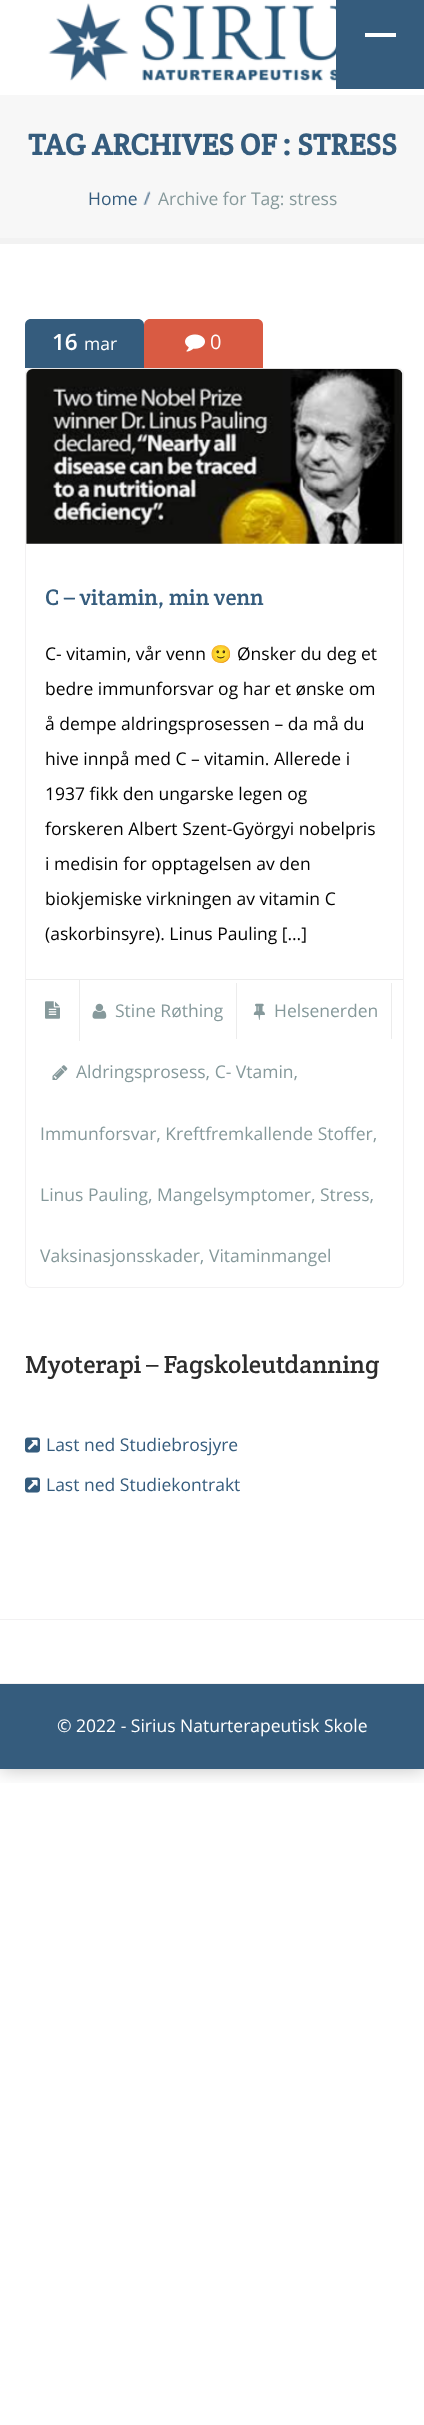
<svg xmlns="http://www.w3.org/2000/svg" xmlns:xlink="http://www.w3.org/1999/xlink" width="424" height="2425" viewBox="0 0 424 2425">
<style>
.cls-1{font:bold 30px Crete Round;fill:#355c7d}
.cls-2{font:17.5px Open Sans;fill:#355c7d}
.cls-3{font:17.5px Open Sans;fill:#86999b}
.cls-4{font:600 22.5px Open Sans;fill:#ffffff}
.cls-5{font:17.5px Open Sans;fill:#ffffff}
.cls-6{font:20px Open Sans;fill:#ffffff}
.cls-7{font:22.5px Crete Round;fill:#355c7d}
.cls-8{font:17.5px Open Sans;fill:#000000}
.cls-9{font:17.5px Noto Color Emoji;fill:#000000}
.cls-10{font:25px Crete Round;fill:#2c2c2c}
</style>
<defs>
<clipPath id="clip1"><rect x="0" y="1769" width="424" height="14"/></clipPath>
</defs>
<rect width="100%" height="100%" fill="#ffffff"/>
<g clip-path="url(#clip1)">
<rect fill="#000000" fill-opacity="0.25" filter="blur(10px)" x="0" y="0" width="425" height="1769"/>
</g>
<image xlink:href="image0.png" x="48" y="3" width="288" height="79"/>
<rect fill="#355c7d" x="336" y="0" width="88" height="89"/>
<rect fill="#ffffff" x="365" y="33" width="31" height="4"/>
<rect fill="#f7f7f7" x="0" y="95" width="424" height="143"/>
<rect fill="#f2f2f2" x="0" y="238" width="424" height="6"/>
<image xlink:href="image1.png" x="143" y="191" width="8" height="14"/>
<path fill="#355c7d" d="M31 319H138C141.5 319 144 321.5 144 325V368H25V325C25 321.5 27.5 319 31 319Z"/>
<path fill="#d95b43" d="M150 319H257C260.5 319 263 321.5 263 325V368H144V325C144 321.5 146.5 319 150 319Z"/>
<image xlink:href="image2.png" x="185" y="334" width="20" height="18"/>
<rect fill="none" stroke="#f2f1f2" x="25.5" y="368.5" width="378" height="919" rx="5.5"/>
<image xlink:href="image3.png" x="26" y="368" width="377" height="176"/>
<rect fill="#ececec" x="26" y="979" width="377" height="1"/>
<rect fill="#ececec" x="79" y="980" width="1" height="61"/>
<image xlink:href="image4.png" x="45" y="1001" width="15" height="18"/>
<rect fill="#ececec" x="236" y="983" width="1" height="56"/>
<image xlink:href="image5.png" x="92" y="1003" width="15" height="16"/>
<rect fill="#ececec" x="391" y="983" width="1" height="56"/>
<image xlink:href="image6.png" x="253" y="1003" width="12" height="17"/>
<image xlink:href="image7.png" x="52" y="1065" width="16" height="15"/>
<image xlink:href="image8.png" x="25" y="1437" width="15" height="16"/>
<image xlink:href="image8.png" x="25" y="1477" width="15" height="16"/>
<rect fill="#f2f1f2" x="0" y="1619" width="424" height="1"/>
<rect fill="#f2f1f2" x="0" y="1683" width="424" height="1"/>
<rect fill="#355c7d" x="0" y="1684" width="424" height="85"/>
<text class="cls-1" x="28" y="155">TAG ARCHIVES OF : STRESS</text>
<text class="cls-2" x="88" y="205">Home</text>
<text class="cls-3" x="158" y="205">Archive for Tag: stress</text>
<text class="cls-4" x="52" y="350">16</text>
<text class="cls-5" x="84" y="350">mar</text>
<text class="cls-6" x="210" y="349">0</text>
<text class="cls-7" x="45" y="605">C – vitamin, min venn</text>
<text class="cls-8" x="45" y="660">C- vitamin, vår venn</text>
<text class="cls-9" x="210" y="660">🙂</text>
<text class="cls-8" x="237" y="660">Ønsker du deg et</text>
<text class="cls-8" x="45" y="695">bedre immunforsvar og har et ønske om</text>
<text class="cls-8" x="45" y="730">å dempe aldringsprosessen – da må du</text>
<text class="cls-8" x="45" y="765">hive innpå med C – vitamin. Allerede i</text>
<text class="cls-8" x="45" y="800">1937 fikk den ungarske legen og</text>
<text class="cls-8" x="45" y="835">forskeren Albert Szent-Györgyi nobelpris</text>
<text class="cls-8" x="45" y="870">i medisin for opptagelsen av den</text>
<text class="cls-8" x="45" y="905">biokjemiske virkningen av vitamin C</text>
<text class="cls-8" x="45" y="940">(askorbinsyre). Linus Pauling […]</text>
<text class="cls-3" x="115" y="1017">Stine Røthing</text>
<text class="cls-3" x="274" y="1017">Helsenerden</text>
<text class="cls-3" x="76" y="1078">Aldringsprosess, C- Vtamin,</text>
<text class="cls-3" x="40" y="1140">Immunforsvar, Kreftfremkallende Stoffer,</text>
<text class="cls-3" x="40" y="1201">Linus Pauling, Mangelsymptomer, Stress,</text>
<text class="cls-3" x="40" y="1262">Vaksinasjonsskader, Vitaminmangel</text>
<text class="cls-10" x="25" y="1373">Myoterapi – Fagskoleutdanning</text>
<text class="cls-2" x="46" y="1451">Last ned Studiebrosjyre</text>
<text class="cls-2" x="46" y="1491">Last ned Studiekontrakt</text>
<text class="cls-5" x="57" y="1732">© 2022 - Sirius Naturterapeutisk Skole</text>
</svg>
